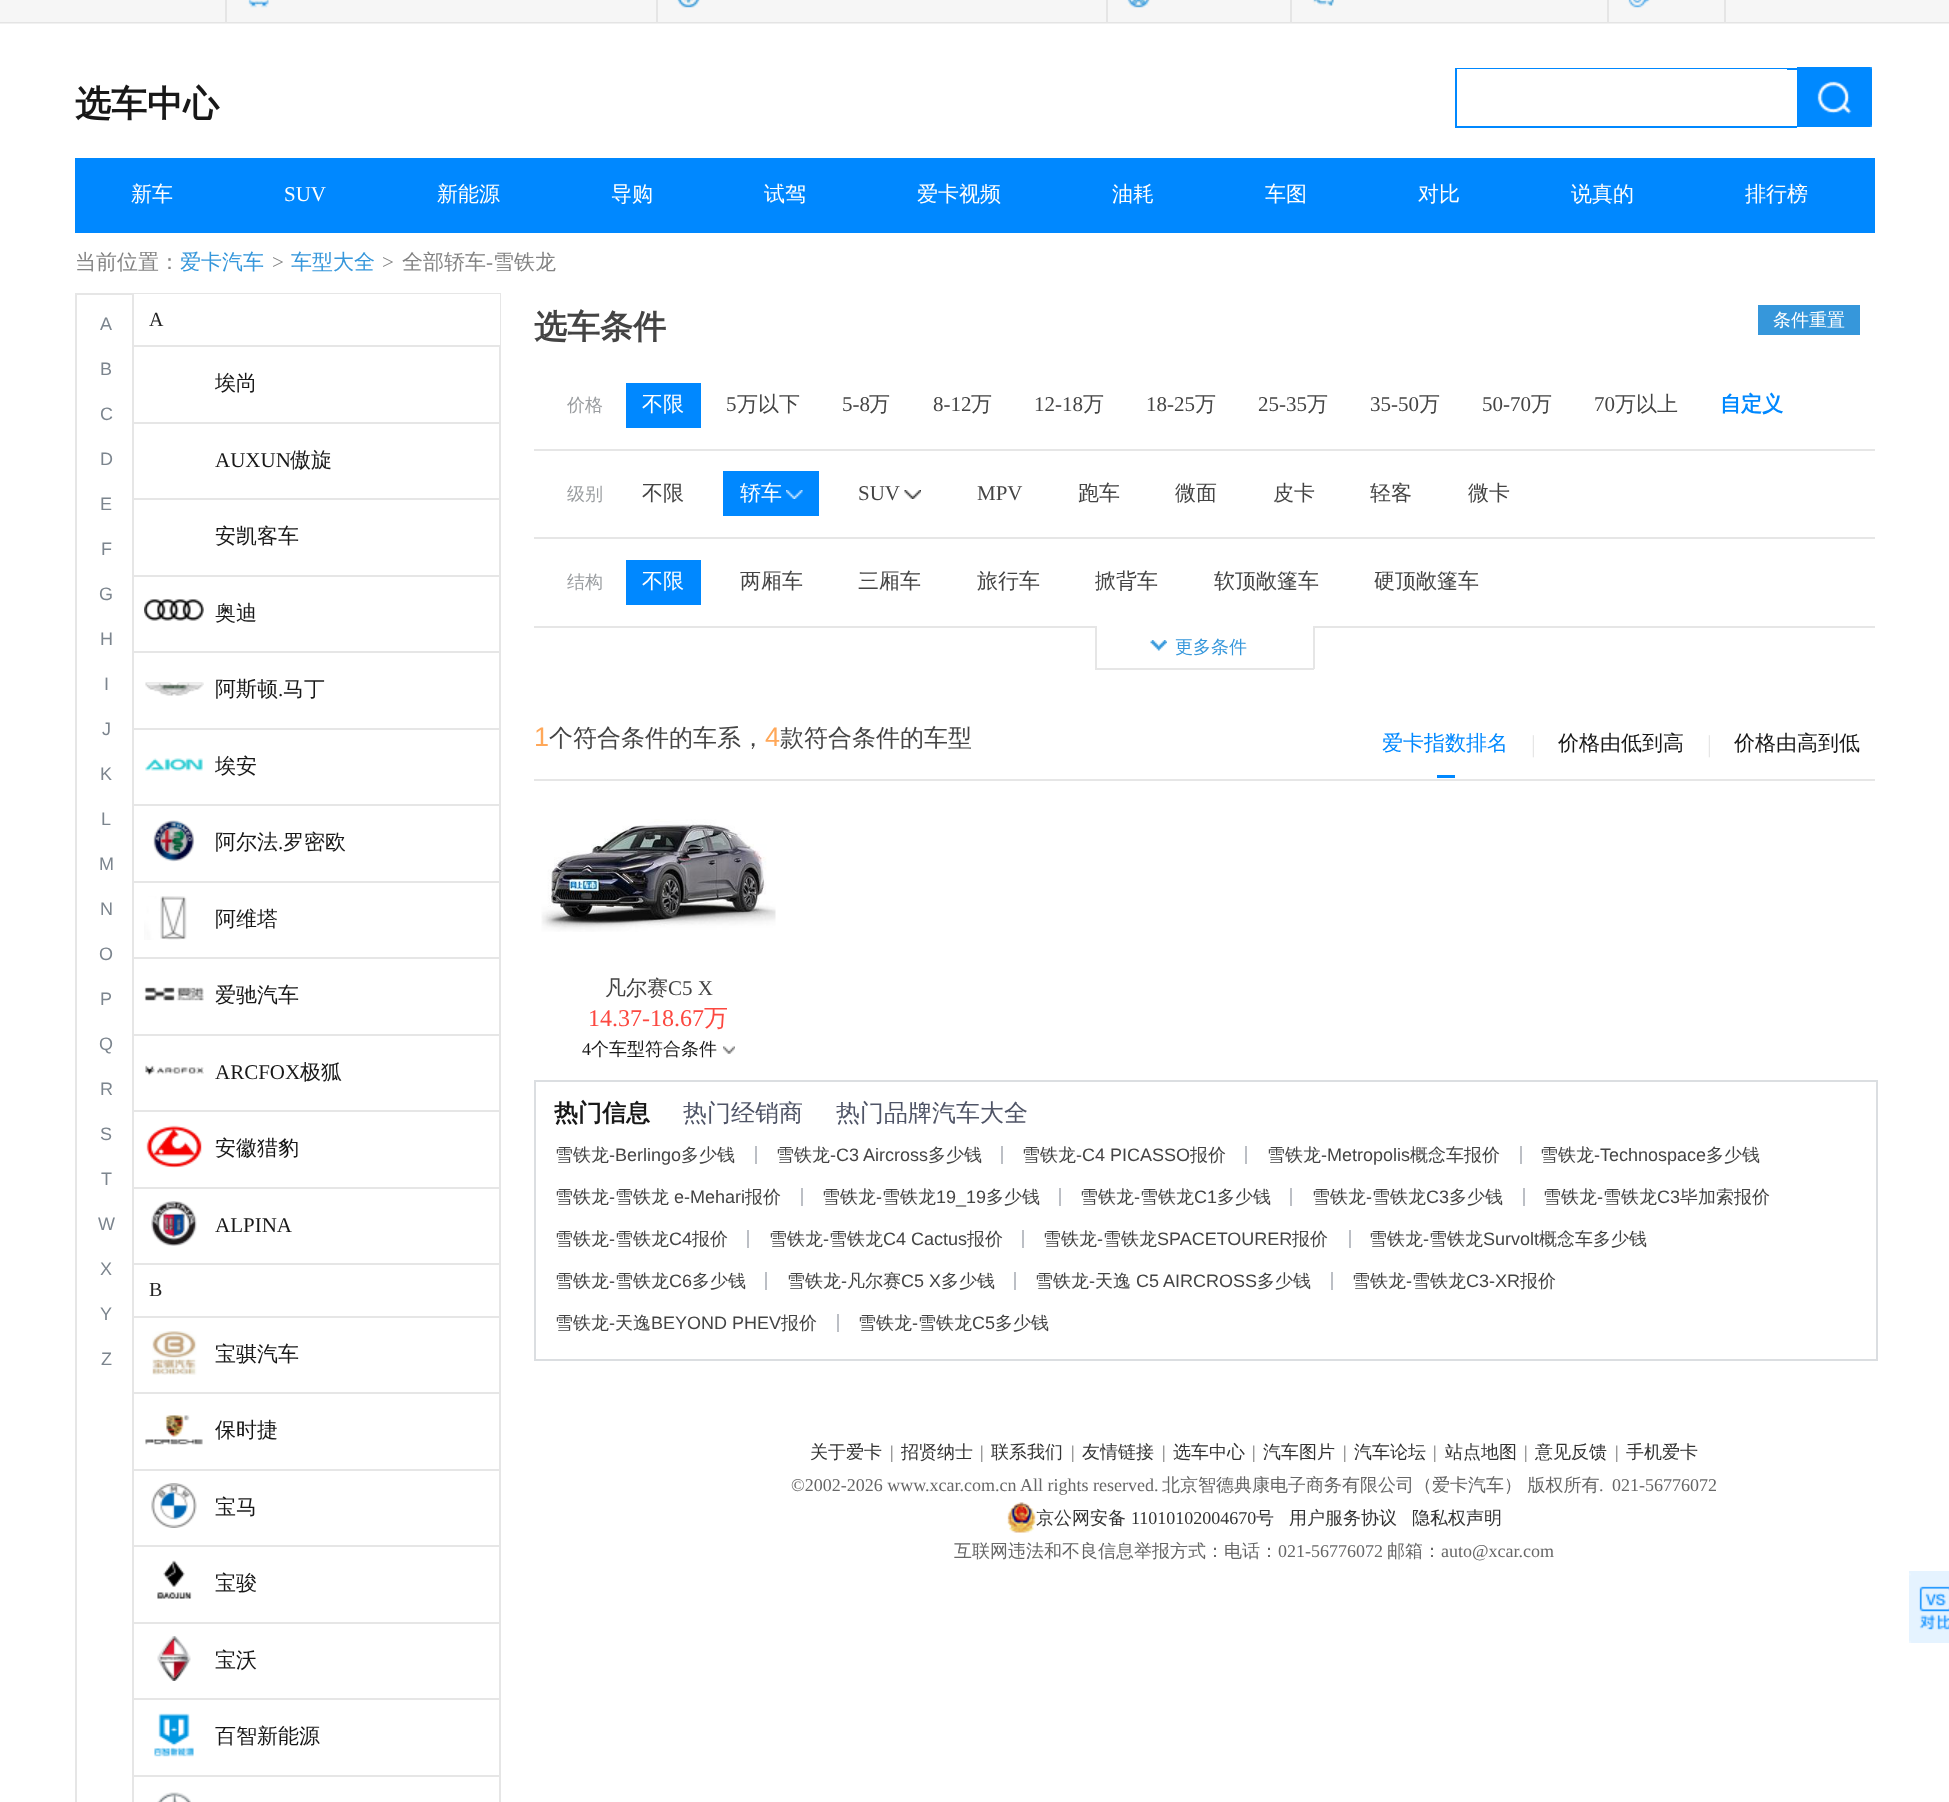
<svg xmlns="http://www.w3.org/2000/svg" xmlns:xlink="http://www.w3.org/1999/xlink" width="1949" height="1802" viewBox="0 0 1949 1802">
<style>
.cls-1{font:bold 36px WenQuanYi Zen Hei;fill:#181818}
.cls-2{font:500 21px WenQuanYi Zen Hei;fill:#ffffff}
.cls-3{font:21px Liberation Serif;fill:#ffffff}
.cls-4{font:500 21px WenQuanYi Zen Hei;fill:#838383}
.cls-5{font:500 21px WenQuanYi Zen Hei;fill:#3697db}
.cls-6{font:21px Liberation Serif;fill:#838383}
.cls-7{font:18px Liberation Sans;fill:#7c858e}
.cls-8{font:20px Liberation Serif;fill:#252525}
.cls-9{font:500 21px WenQuanYi Zen Hei;fill:#181818}
.cls-10{font:21px Liberation Serif;fill:#181818}
.cls-11{font:bold 33px WenQuanYi Zen Hei;fill:#444444}
.cls-12{font:500 18px WenQuanYi Zen Hei;fill:#ffffff}
.cls-13{font:500 18px WenQuanYi Zen Hei;fill:#9b9ea1}
.cls-14{font:21px Liberation Serif;fill:#444444}
.cls-15{font:500 21px WenQuanYi Zen Hei;fill:#444444}
.cls-16{font:bold 21px WenQuanYi Zen Hei;fill:#0088ff}
.cls-17{font:500 18px WenQuanYi Zen Hei;fill:#3697db}
.cls-18{font:27px Liberation Sans;fill:#ffa859}
.cls-19{font:500 24px WenQuanYi Zen Hei;fill:#444444}
.cls-20{font:500 21px WenQuanYi Zen Hei;fill:#0088ff}
.cls-21{font:24px Liberation Serif;fill:#e6e6e6}
.cls-22{font:24px Liberation Serif;fill:#fc4840}
.cls-23{font:500 24px WenQuanYi Zen Hei;fill:#fc4840}
.cls-24{font:18px Liberation Serif;fill:#181818}
.cls-25{font:500 18px WenQuanYi Zen Hei;fill:#181818}
.cls-26{font:bold 24px WenQuanYi Zen Hei;fill:#181818}
.cls-27{font:500 24px WenQuanYi Zen Hei;fill:#4f5466}
.cls-28{font:500 18px WenQuanYi Zen Hei;fill:#444444}
.cls-29{font:18px Liberation Sans;fill:#444444}
.cls-30{font:500 18px WenQuanYi Zen Hei;fill:#333333}
.cls-31{font:18px Liberation Serif;fill:#666666}
.cls-32{font:500 18px WenQuanYi Zen Hei;fill:#666666}
.cls-33{font:18px Liberation Serif;fill:#333333}
</style>
<rect width="100%" height="100%" fill="#ffffff"/>
<rect fill="#f6f6f6" x="0" y="0" width="1949" height="24"/>
<image xlink:href="image0.png" x="0" y="22" width="1949" height="2"/>
<rect fill="#e5e5e5" x="225" y="0" width="2" height="23"/>
<image xlink:href="image1.png" x="248" y="0" width="21" height="8"/>
<rect fill="#e5e5e5" x="656" y="0" width="2" height="23"/>
<image xlink:href="image2.png" x="677" y="0" width="23" height="8"/>
<rect fill="#e5e5e5" x="1106" y="0" width="2" height="23"/>
<image xlink:href="image3.png" x="1127" y="0" width="23" height="8"/>
<rect fill="#e5e5e5" x="1290" y="0" width="2" height="23"/>
<image xlink:href="image4.png" x="1312" y="0" width="22" height="6"/>
<rect fill="#e5e5e5" x="1607" y="0" width="2" height="23"/>
<rect fill="#e5e5e5" x="1724" y="0" width="2" height="23"/>
<image xlink:href="image5.png" x="1628" y="0" width="22" height="8"/>
<rect fill="#0088ff" x="1455" y="68" width="342" height="2"/>
<rect fill="#0088ff" x="1455" y="126" width="342" height="2"/>
<rect fill="#0088ff" x="1455" y="68" width="2" height="60"/>
<rect fill="#ffffff" x="1457" y="69" width="330" height="1"/>
<image xlink:href="image6.png" x="1797" y="67" width="75" height="60"/>
<rect fill="#0088ff" x="75" y="158" width="1800" height="75"/>
<rect fill="none" stroke="#e6e6e6" stroke-width="2" x="76" y="294" width="424" height="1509"/>
<rect fill="#e6e6e6" x="132" y="294" width="2" height="1508"/>
<rect fill="#ffffff" x="134" y="294" width="366" height="51"/>
<rect fill="#e6e6e6" x="134" y="345" width="366" height="2"/>
<rect fill="#e6e6e6" x="134" y="422" width="366" height="2"/>
<rect fill="#e6e6e6" x="134" y="498" width="366" height="2"/>
<rect fill="#e6e6e6" x="134" y="575" width="366" height="2"/>
<rect fill="#e6e6e6" x="134" y="651" width="366" height="2"/>
<image xlink:href="image7.png" x="144" y="599" width="60" height="22"/>
<rect fill="#e6e6e6" x="134" y="728" width="366" height="2"/>
<image xlink:href="image8.png" x="145" y="682" width="59" height="14"/>
<rect fill="#e6e6e6" x="134" y="804" width="366" height="2"/>
<image xlink:href="image9.png" x="145" y="758" width="58" height="13"/>
<rect fill="#e6e6e6" x="134" y="881" width="366" height="2"/>
<image xlink:href="image10.png" x="153" y="820" width="42" height="42"/>
<rect fill="#e6e6e6" x="134" y="957" width="366" height="2"/>
<image xlink:href="image11.png" x="144" y="896" width="43" height="44"/>
<rect fill="#e6e6e6" x="134" y="1034" width="366" height="2"/>
<image xlink:href="image12.png" x="144" y="987" width="60" height="14"/>
<rect fill="#e6e6e6" x="134" y="1110" width="366" height="2"/>
<image xlink:href="image13.png" x="145" y="1065" width="59" height="11"/>
<rect fill="#e6e6e6" x="134" y="1187" width="366" height="2"/>
<image xlink:href="image14.png" x="146" y="1125" width="56" height="43"/>
<rect fill="#e6e6e6" x="134" y="1263" width="366" height="2"/>
<image xlink:href="image15.png" x="151" y="1201" width="46" height="45"/>
<rect fill="#e6e6e6" x="134" y="1316" width="366" height="2"/>
<rect fill="#e6e6e6" x="134" y="1392" width="366" height="2"/>
<image xlink:href="image16.png" x="152" y="1331" width="45" height="44"/>
<rect fill="#e6e6e6" x="134" y="1469" width="366" height="2"/>
<image xlink:href="image17.png" x="145" y="1415" width="58" height="30"/>
<rect fill="#e6e6e6" x="134" y="1545" width="366" height="2"/>
<image xlink:href="image18.png" x="151" y="1483" width="46" height="45"/>
<rect fill="#e6e6e6" x="134" y="1622" width="366" height="2"/>
<image xlink:href="image19.png" x="157" y="1560" width="35" height="39"/>
<rect fill="#e6e6e6" x="134" y="1698" width="366" height="2"/>
<image xlink:href="image20.png" x="157" y="1636" width="34" height="45"/>
<rect fill="#e6e6e6" x="134" y="1775" width="366" height="2"/>
<image xlink:href="image21.png" x="154" y="1713" width="40" height="44"/>
<image xlink:href="image22.png" x="157" y="1792" width="34" height="10"/>
<rect fill="#3697db" x="1758" y="305" width="102" height="30"/>
<rect fill="#e6e6e6" x="534" y="449" width="1341" height="2"/>
<rect fill="#0088ff" x="626" y="383" width="75" height="45"/>
<rect fill="#e6e6e6" x="534" y="537" width="1341" height="2"/>
<rect fill="#0088ff" x="723" y="471" width="96" height="45"/>
<image xlink:href="image23.png" x="786" y="490" width="17" height="9"/>
<image xlink:href="image24.png" x="904" y="490" width="17" height="9"/>
<rect fill="#e6e6e6" x="534" y="626" width="1341" height="2"/>
<rect fill="#0088ff" x="626" y="560" width="75" height="45"/>
<rect fill="#ffffff" x="1097" y="626" width="216" height="2"/>
<rect fill="#e6e6e6" x="1313" y="626" width="2" height="43"/>
<rect fill="#e6e6e6" x="1095" y="668" width="219" height="2"/>
<rect fill="#e6e6e6" x="1095" y="626" width="2" height="43"/>
<image xlink:href="image25.png" x="1150" y="640" width="17" height="11"/>
<rect fill="#e6e6e6" x="534" y="779" width="1341" height="2"/>
<rect fill="#0088ff" x="1437" y="775" width="18" height="3"/>
<image xlink:href="image26.png" x="541" y="819" width="235" height="113"/>
<image xlink:href="image27.png" x="723" y="1046" width="12" height="8"/>
<rect fill="none" stroke="#dbdee1" stroke-width="2" x="535" y="1081" width="1342" height="279"/>
<rect fill="#bcbfc5" x="755" y="1146" width="2" height="18"/>
<rect fill="#bcbfc5" x="1001" y="1146" width="2" height="18"/>
<rect fill="#bcbfc5" x="1245" y="1146" width="2" height="18"/>
<rect fill="#bcbfc5" x="1520" y="1146" width="2" height="18"/>
<rect fill="#bcbfc5" x="801" y="1188" width="2" height="18"/>
<rect fill="#bcbfc5" x="1059" y="1188" width="2" height="18"/>
<rect fill="#bcbfc5" x="1290" y="1188" width="2" height="18"/>
<rect fill="#bcbfc5" x="1523" y="1188" width="2" height="18"/>
<rect fill="#bcbfc5" x="747" y="1230" width="2" height="18"/>
<rect fill="#bcbfc5" x="1022" y="1230" width="2" height="18"/>
<rect fill="#bcbfc5" x="1349" y="1230" width="2" height="18"/>
<rect fill="#bcbfc5" x="765" y="1272" width="2" height="18"/>
<rect fill="#bcbfc5" x="1014" y="1272" width="2" height="18"/>
<rect fill="#bcbfc5" x="1331" y="1272" width="2" height="18"/>
<rect fill="#bcbfc5" x="837" y="1314" width="2" height="18"/>
<image xlink:href="image28.png" x="1007" y="1502" width="29" height="31"/>
<image xlink:href="image29.png" x="1909" y="1571" width="40" height="72"/>
<text class="cls-1" x="75" y="116">选车中心</text>
<text class="cls-2" x="131" y="201">新车</text>
<text class="cls-3" x="284" y="201">SUV</text>
<text class="cls-2" x="437" y="201">新能源</text>
<text class="cls-2" x="611" y="201">导购</text>
<text class="cls-2" x="764" y="201">试驾</text>
<text class="cls-2" x="917" y="201">爱卡视频</text>
<text class="cls-2" x="1112" y="201">油耗</text>
<text class="cls-2" x="1265" y="201">车图</text>
<text class="cls-2" x="1418" y="201">对比</text>
<text class="cls-2" x="1571" y="201">说真的</text>
<text class="cls-2" x="1745" y="201">排行榜</text>
<text class="cls-4" x="75" y="269">当前位置：</text>
<text class="cls-5" x="180" y="269">爱卡汽车</text>
<text class="cls-6" x="272" y="269">&gt;</text>
<text class="cls-5" x="291" y="269">车型大全</text>
<text class="cls-6" x="382" y="269">&gt;</text>
<text class="cls-4" x="402" y="269">全部轿车</text>
<text class="cls-6" x="486" y="269">-</text>
<text class="cls-4" x="493" y="269">雪铁龙</text>
<text class="cls-7" x="100" y="330">A</text>
<text class="cls-7" x="100" y="375">B</text>
<text class="cls-7" x="100" y="420">C</text>
<text class="cls-7" x="100" y="465">D</text>
<text class="cls-7" x="100" y="510">E</text>
<text class="cls-7" x="101" y="555">F</text>
<text class="cls-7" x="99" y="600">G</text>
<text class="cls-7" x="100" y="645">H</text>
<text class="cls-7" x="104" y="690">I</text>
<text class="cls-7" x="102" y="735">J</text>
<text class="cls-7" x="100" y="780">K</text>
<text class="cls-7" x="101" y="825">L</text>
<text class="cls-7" x="99" y="870">M</text>
<text class="cls-7" x="100" y="915">N</text>
<text class="cls-7" x="99" y="960">O</text>
<text class="cls-7" x="100" y="1005">P</text>
<text class="cls-7" x="99" y="1050">Q</text>
<text class="cls-7" x="100" y="1095">R</text>
<text class="cls-7" x="100" y="1140">S</text>
<text class="cls-7" x="101" y="1185">T</text>
<text class="cls-7" x="98" y="1230">W</text>
<text class="cls-7" x="100" y="1275">X</text>
<text class="cls-7" x="100" y="1320">Y</text>
<text class="cls-7" x="101" y="1365">Z</text>
<text class="cls-8" x="149" y="326">A</text>
<text class="cls-9" x="215" y="390">埃尚</text>
<text class="cls-10" x="215" y="467">AUXUN</text>
<text class="cls-9" x="290" y="467">傲旋</text>
<text class="cls-9" x="215" y="543">安凯客车</text>
<text class="cls-9" x="215" y="620">奥迪</text>
<text class="cls-9" x="215" y="696">阿斯顿</text>
<text class="cls-10" x="278" y="696">.</text>
<text class="cls-9" x="283" y="696">马丁</text>
<text class="cls-9" x="215" y="773">埃安</text>
<text class="cls-9" x="215" y="849">阿尔法</text>
<text class="cls-10" x="278" y="849">.</text>
<text class="cls-9" x="283" y="849">罗密欧</text>
<text class="cls-9" x="215" y="926">阿维塔</text>
<text class="cls-9" x="215" y="1002">爱驰汽车</text>
<text class="cls-10" x="215" y="1079">ARCFOX</text>
<text class="cls-9" x="300" y="1079">极狐</text>
<text class="cls-9" x="215" y="1155">安徽猎豹</text>
<text class="cls-10" x="215" y="1232">ALPINA</text>
<text class="cls-8" x="149" y="1296">B</text>
<text class="cls-9" x="215" y="1361">宝骐汽车</text>
<text class="cls-9" x="215" y="1437">保时捷</text>
<text class="cls-9" x="215" y="1514">宝马</text>
<text class="cls-9" x="215" y="1590">宝骏</text>
<text class="cls-9" x="215" y="1667">宝沃</text>
<text class="cls-9" x="215" y="1743">百智新能源</text>
<text class="cls-11" x="534" y="338">选车条件</text>
<text class="cls-12" x="1773" y="326">条件重置</text>
<text class="cls-13" x="567" y="411">价格</text>
<text class="cls-2" x="642" y="411">不限</text>
<text class="cls-14" x="726" y="411">5</text>
<text class="cls-15" x="737" y="411">万以下</text>
<text class="cls-14" x="842" y="411">5-8</text>
<text class="cls-15" x="869" y="411">万</text>
<text class="cls-14" x="933" y="411">8-12</text>
<text class="cls-15" x="971" y="411">万</text>
<text class="cls-14" x="1034" y="411">12-18</text>
<text class="cls-15" x="1083" y="411">万</text>
<text class="cls-14" x="1146" y="411">18-25</text>
<text class="cls-15" x="1195" y="411">万</text>
<text class="cls-14" x="1258" y="411">25-35</text>
<text class="cls-15" x="1307" y="411">万</text>
<text class="cls-14" x="1370" y="411">35-50</text>
<text class="cls-15" x="1419" y="411">万</text>
<text class="cls-14" x="1482" y="411">50-70</text>
<text class="cls-15" x="1531" y="411">万</text>
<text class="cls-14" x="1594" y="411">70</text>
<text class="cls-15" x="1615" y="411">万以上</text>
<text class="cls-16" x="1720" y="411">自定义</text>
<text class="cls-13" x="567" y="500">级别</text>
<text class="cls-15" x="642" y="500">不限</text>
<text class="cls-2" x="740" y="500">轿车</text>
<text class="cls-14" x="858" y="500">SUV</text>
<text class="cls-14" x="977" y="500">MPV</text>
<text class="cls-15" x="1078" y="500">跑车</text>
<text class="cls-15" x="1175" y="500">微面</text>
<text class="cls-15" x="1273" y="500">皮卡</text>
<text class="cls-15" x="1370" y="500">轻客</text>
<text class="cls-15" x="1468" y="500">微卡</text>
<text class="cls-13" x="567" y="588">结构</text>
<text class="cls-2" x="642" y="588">不限</text>
<text class="cls-15" x="740" y="588">两厢车</text>
<text class="cls-15" x="858" y="588">三厢车</text>
<text class="cls-15" x="977" y="588">旅行车</text>
<text class="cls-15" x="1095" y="588">掀背车</text>
<text class="cls-15" x="1214" y="588">软顶敞篷车</text>
<text class="cls-15" x="1374" y="588">硬顶敞篷车</text>
<text class="cls-17" x="1175" y="653">更多条件</text>
<text class="cls-18" x="534" y="746">1</text>
<text class="cls-19" x="549" y="746">个符合条件的车系，</text>
<text class="cls-18" x="765" y="746">4</text>
<text class="cls-19" x="780" y="746">款符合条件的车型</text>
<text class="cls-20" x="1382" y="750">爱卡指数排名</text>
<text class="cls-21" x="1531" y="752">|</text>
<text class="cls-9" x="1558" y="750">价格由低到高</text>
<text class="cls-21" x="1707" y="752">|</text>
<text class="cls-9" x="1734" y="750">价格由高到低</text>
<text class="cls-15" x="605" y="995">凡尔赛</text>
<text class="cls-14" x="668" y="995">C5 X</text>
<text class="cls-22" x="588" y="1026">14.37-18.67</text>
<text class="cls-23" x="704" y="1026">万</text>
<text class="cls-24" x="582" y="1055">4</text>
<text class="cls-25" x="591" y="1055">个车型符合条件</text>
<text class="cls-26" x="554" y="1121">热门信息</text>
<text class="cls-27" x="683" y="1121">热门经销商</text>
<text class="cls-27" x="836" y="1121">热门品牌汽车大全</text>
<text class="cls-28" x="555" y="1161">雪铁龙</text>
<text class="cls-29" x="609" y="1161">-Berlingo</text>
<text class="cls-28" x="681" y="1161">多少钱</text>
<text class="cls-28" x="776" y="1161">雪铁龙</text>
<text class="cls-29" x="830" y="1161">-C3 Aircross</text>
<text class="cls-28" x="928" y="1161">多少钱</text>
<text class="cls-28" x="1022" y="1161">雪铁龙</text>
<text class="cls-29" x="1076" y="1161">-C4 PICASSO</text>
<text class="cls-28" x="1190" y="1161">报价</text>
<text class="cls-28" x="1267" y="1161">雪铁龙</text>
<text class="cls-29" x="1321" y="1161">-Metropolis</text>
<text class="cls-28" x="1410" y="1161">概念车报价</text>
<text class="cls-28" x="1540" y="1161">雪铁龙</text>
<text class="cls-29" x="1594" y="1161">-Technospace</text>
<text class="cls-28" x="1706" y="1161">多少钱</text>
<text class="cls-28" x="555" y="1203">雪铁龙</text>
<text class="cls-29" x="609" y="1203">-</text>
<text class="cls-28" x="615" y="1203">雪铁龙</text>
<text class="cls-29" x="674" y="1203">e-Mehari</text>
<text class="cls-28" x="745" y="1203">报价</text>
<text class="cls-28" x="822" y="1203">雪铁龙</text>
<text class="cls-29" x="876" y="1203">-</text>
<text class="cls-28" x="882" y="1203">雪铁龙</text>
<text class="cls-29" x="936" y="1203">19_19</text>
<text class="cls-28" x="986" y="1203">多少钱</text>
<text class="cls-28" x="1080" y="1203">雪铁龙</text>
<text class="cls-29" x="1134" y="1203">-</text>
<text class="cls-28" x="1140" y="1203">雪铁龙</text>
<text class="cls-29" x="1194" y="1203">C1</text>
<text class="cls-28" x="1217" y="1203">多少钱</text>
<text class="cls-28" x="1312" y="1203">雪铁龙</text>
<text class="cls-29" x="1366" y="1203">-</text>
<text class="cls-28" x="1372" y="1203">雪铁龙</text>
<text class="cls-29" x="1426" y="1203">C3</text>
<text class="cls-28" x="1449" y="1203">多少钱</text>
<text class="cls-28" x="1543" y="1203">雪铁龙</text>
<text class="cls-29" x="1597" y="1203">-</text>
<text class="cls-28" x="1603" y="1203">雪铁龙</text>
<text class="cls-29" x="1657" y="1203">C3</text>
<text class="cls-28" x="1680" y="1203">毕加索报价</text>
<text class="cls-28" x="555" y="1245">雪铁龙</text>
<text class="cls-29" x="609" y="1245">-</text>
<text class="cls-28" x="615" y="1245">雪铁龙</text>
<text class="cls-29" x="669" y="1245">C4</text>
<text class="cls-28" x="692" y="1245">报价</text>
<text class="cls-28" x="769" y="1245">雪铁龙</text>
<text class="cls-29" x="823" y="1245">-</text>
<text class="cls-28" x="829" y="1245">雪铁龙</text>
<text class="cls-29" x="883" y="1245">C4 Cactus</text>
<text class="cls-28" x="967" y="1245">报价</text>
<text class="cls-28" x="1043" y="1245">雪铁龙</text>
<text class="cls-29" x="1097" y="1245">-</text>
<text class="cls-28" x="1103" y="1245">雪铁龙</text>
<text class="cls-29" x="1157" y="1245">SPACETOURER</text>
<text class="cls-28" x="1292" y="1245">报价</text>
<text class="cls-28" x="1369" y="1245">雪铁龙</text>
<text class="cls-29" x="1423" y="1245">-</text>
<text class="cls-28" x="1429" y="1245">雪铁龙</text>
<text class="cls-29" x="1483" y="1245">Survolt</text>
<text class="cls-28" x="1539" y="1245">概念车多少钱</text>
<text class="cls-28" x="555" y="1287">雪铁龙</text>
<text class="cls-29" x="609" y="1287">-</text>
<text class="cls-28" x="615" y="1287">雪铁龙</text>
<text class="cls-29" x="669" y="1287">C6</text>
<text class="cls-28" x="692" y="1287">多少钱</text>
<text class="cls-28" x="787" y="1287">雪铁龙</text>
<text class="cls-29" x="841" y="1287">-</text>
<text class="cls-28" x="847" y="1287">凡尔赛</text>
<text class="cls-29" x="901" y="1287">C5 X</text>
<text class="cls-28" x="941" y="1287">多少钱</text>
<text class="cls-28" x="1035" y="1287">雪铁龙</text>
<text class="cls-29" x="1089" y="1287">-</text>
<text class="cls-28" x="1095" y="1287">天逸</text>
<text class="cls-29" x="1136" y="1287">C5 AIRCROSS</text>
<text class="cls-28" x="1257" y="1287">多少钱</text>
<text class="cls-28" x="1352" y="1287">雪铁龙</text>
<text class="cls-29" x="1406" y="1287">-</text>
<text class="cls-28" x="1412" y="1287">雪铁龙</text>
<text class="cls-29" x="1466" y="1287">C3-XR</text>
<text class="cls-28" x="1520" y="1287">报价</text>
<text class="cls-28" x="555" y="1329">雪铁龙</text>
<text class="cls-29" x="609" y="1329">-</text>
<text class="cls-28" x="615" y="1329">天逸</text>
<text class="cls-29" x="651" y="1329">BEYOND PHEV</text>
<text class="cls-28" x="781" y="1329">报价</text>
<text class="cls-28" x="858" y="1329">雪铁龙</text>
<text class="cls-29" x="912" y="1329">-</text>
<text class="cls-28" x="918" y="1329">雪铁龙</text>
<text class="cls-29" x="972" y="1329">C5</text>
<text class="cls-28" x="995" y="1329">多少钱</text>
<text class="cls-30" x="810" y="1458">关于爱卡</text>
<text class="cls-31" x="890" y="1458">|</text>
<text class="cls-30" x="901" y="1458">招贤纳士</text>
<text class="cls-31" x="980" y="1458">|</text>
<text class="cls-30" x="991" y="1458">联系我们</text>
<text class="cls-31" x="1071" y="1458">|</text>
<text class="cls-30" x="1082" y="1458">友情链接</text>
<text class="cls-31" x="1162" y="1458">|</text>
<text class="cls-30" x="1173" y="1458">选车中心</text>
<text class="cls-31" x="1252" y="1458">|</text>
<text class="cls-30" x="1263" y="1458">汽车图片</text>
<text class="cls-31" x="1343" y="1458">|</text>
<text class="cls-30" x="1354" y="1458">汽车论坛</text>
<text class="cls-31" x="1433" y="1458">|</text>
<text class="cls-30" x="1445" y="1458">站点地图</text>
<text class="cls-31" x="1524" y="1458">|</text>
<text class="cls-30" x="1535" y="1458">意见反馈</text>
<text class="cls-31" x="1615" y="1458">|</text>
<text class="cls-30" x="1626" y="1458">手机爱卡</text>
<text class="cls-31" x="791" y="1491">©2002-2026 www.xcar.com.cn All rights reserved.</text>
<text class="cls-32" x="1162" y="1491">北京智德典康电子商务有限公司（爱卡汽车） 版权所有</text>
<text class="cls-31" x="1599" y="1491">.</text>
<text class="cls-31" x="1612" y="1491">021-56776072</text>
<text class="cls-30" x="1036" y="1524">京公网安备</text>
<text class="cls-33" x="1131" y="1524">11010102004670</text>
<text class="cls-30" x="1256" y="1524">号</text>
<text class="cls-30" x="1289" y="1524">用户服务协议</text>
<text class="cls-30" x="1412" y="1524">隐私权声明</text>
<text class="cls-32" x="954" y="1557">互联网违法和不良信息举报方式：电话：</text>
<text class="cls-31" x="1278" y="1557">021-56776072</text>
<text class="cls-32" x="1387" y="1557">邮箱：</text>
<text class="cls-31" x="1441" y="1557">auto@xcar.com</text>
</svg>
